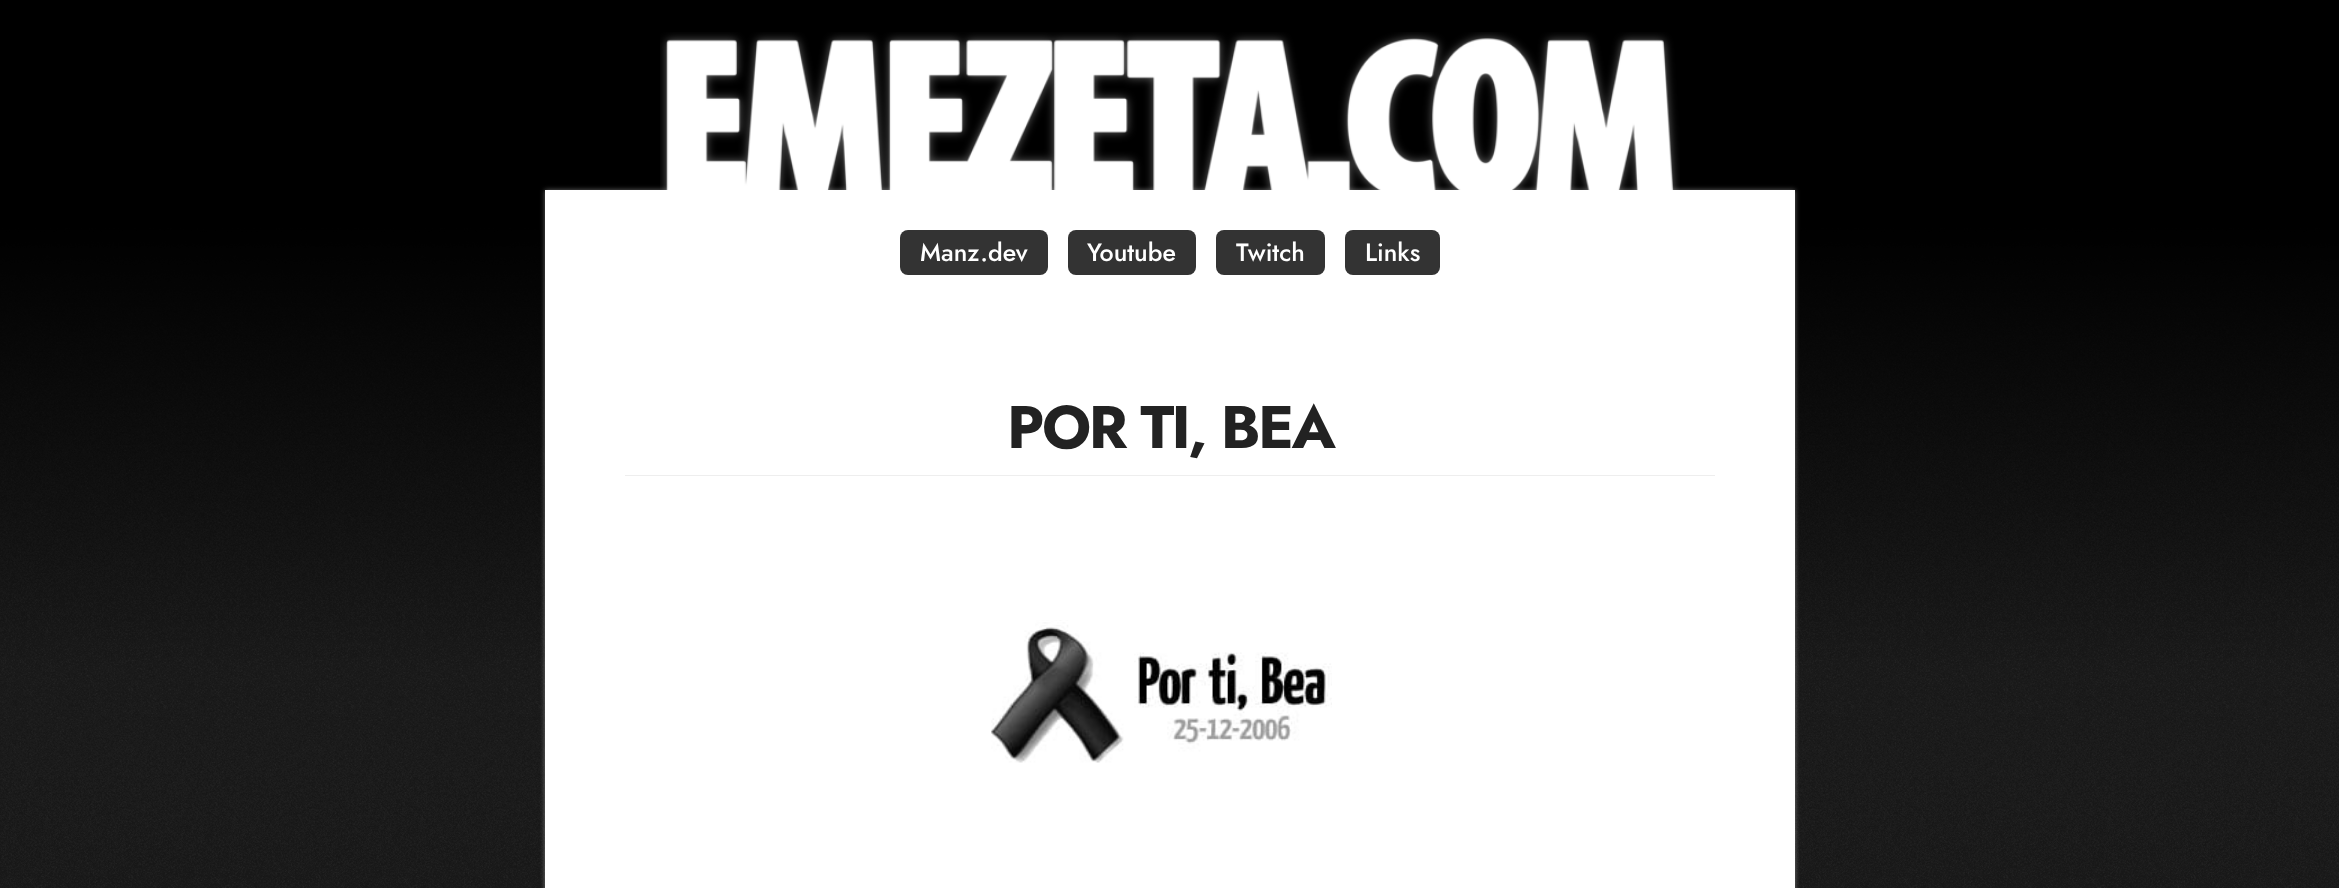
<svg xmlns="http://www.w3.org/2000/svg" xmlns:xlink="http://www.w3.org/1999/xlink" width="2339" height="888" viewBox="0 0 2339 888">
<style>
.cls-1{font:500 25px Jost;fill:#ffffff}
.cls-2{font:bold 60px Jost;letter-spacing:-2.5px;fill:#222222}
</style>
<rect width="100%" height="100%" fill="#ffffff"/>
<image xlink:href="image0.png" x="0" y="0" width="2339" height="888"/>
<rect fill="#ffffff" fill-opacity="0.4" filter="blur(2.5px)" x="545" y="190" width="1250" height="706"/>
<image xlink:href="image1.png" x="660" y="32" width="1020" height="158"/>
<rect fill="#ffffff" x="545" y="190" width="1250" height="698"/>
<rect fill="#333333" x="900" y="230" width="148" height="45" rx="8"/>
<rect fill="#333333" x="1068" y="230" width="128" height="45" rx="8"/>
<rect fill="#333333" x="1216" y="230" width="109" height="45" rx="8"/>
<rect fill="#333333" x="1345" y="230" width="95" height="45" rx="8"/>
<rect fill="#eeeeee" x="625" y="475" width="1090" height="1"/>
<image xlink:href="image2.png" x="991" y="620" width="341" height="143"/>
<text class="cls-1" x="920" y="261">Manz.dev</text>
<text class="cls-1" x="1087" y="261">Youtube</text>
<text class="cls-1" x="1236" y="261">Twitch</text>
<text class="cls-1" x="1365" y="261">Links</text>
<text class="cls-2" x="1007" y="448">POR TI, BEA</text>
</svg>
